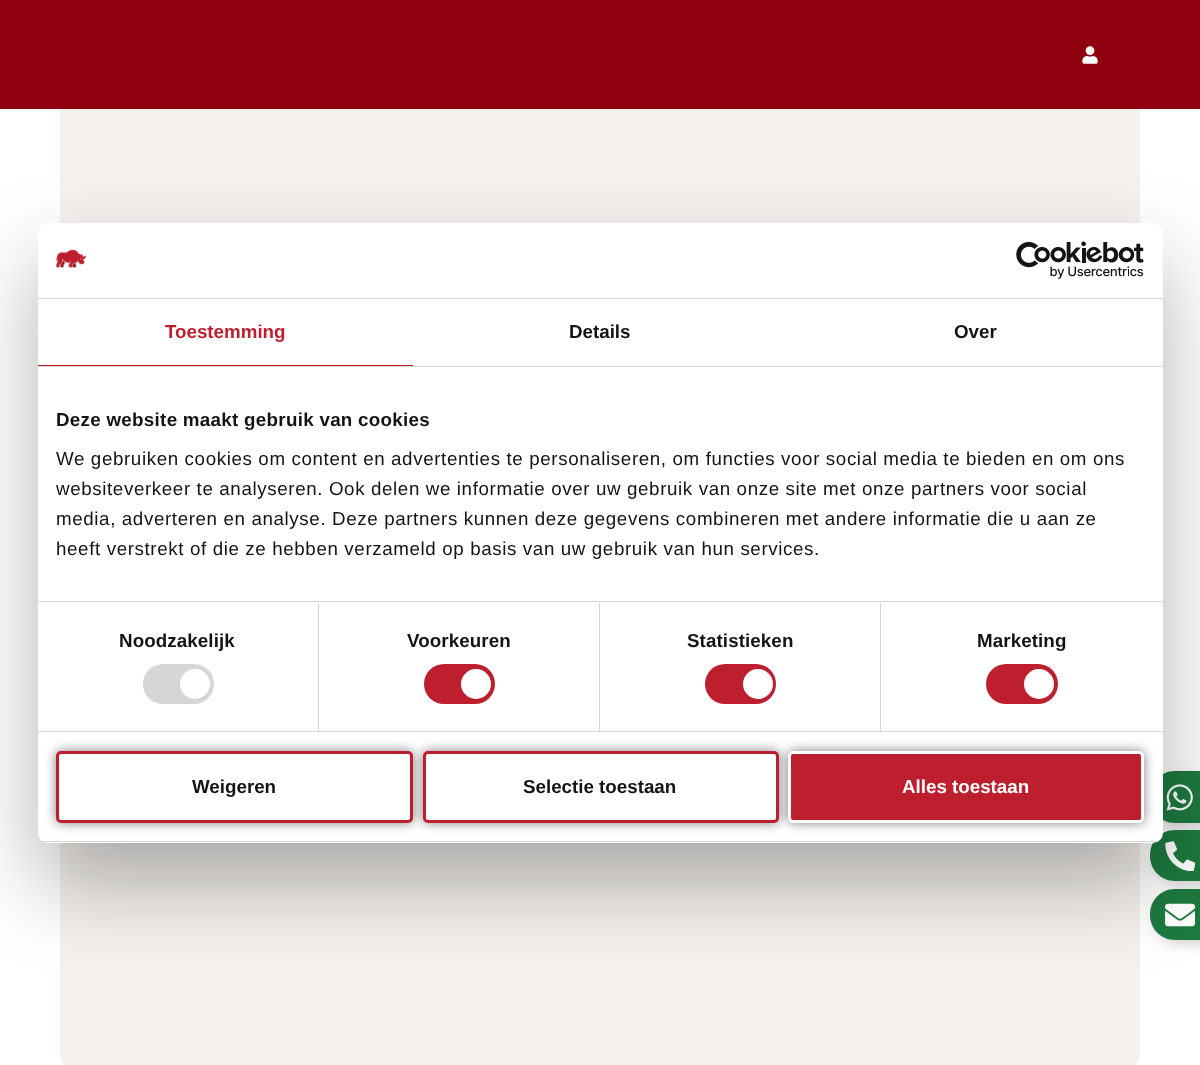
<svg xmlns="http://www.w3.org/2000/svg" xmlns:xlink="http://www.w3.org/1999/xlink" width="1200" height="1065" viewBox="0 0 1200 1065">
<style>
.cls-1{font:bold 18.75px Liberation Sans;fill:#be1f2e}
.cls-2{font:bold 18.75px Liberation Sans;fill:#141414}
.cls-3{font:bold 18.75px Liberation Sans;letter-spacing:0.3px;fill:#141414}
.cls-4{font:18.75px Liberation Sans;letter-spacing:0.62px;fill:#141414}
.cls-5{font:bold 18.75px Liberation Sans;letter-spacing:0.1px;fill:#141414}
.cls-6{font:bold 18.75px Liberation Sans;fill:#ffffff}
</style>
<defs>
<clipPath id="clip1"><rect x="38" y="223" width="1125" height="620" rx="10"/></clipPath>
</defs>
<rect width="100%" height="100%" fill="#ffffff"/>
<rect fill="#8e000d" x="0" y="0" width="1200" height="109"/>
<image xlink:href="image0.png" x="1082" y="46" width="16" height="18"/>
<path fill="#f4f1ee" d="M60 109H1140V1055C1140 1062 1134 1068 1127 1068H73C66 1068 60 1062 60 1055Z"/>
<rect fill="#000000" fill-opacity="0.15" filter="blur(6px)" x="1155" y="776" width="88" height="52" rx="25"/>
<path fill="#1e7a3f" d="M1175 771H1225V823H1175C1161 823 1150 812 1150 798V796C1150 782 1161 771 1175 771Z"/>
<image xlink:href="image3.png" x="1166" y="784" width="27" height="27"/>
<rect fill="#000000" fill-opacity="0.15" filter="blur(6px)" x="1155" y="835" width="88" height="51" rx="25"/>
<path fill="#1e7a3f" d="M1175 830H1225V881H1175C1161 881 1150 870 1150 856V855C1150 841 1161 830 1175 830Z"/>
<image xlink:href="image4.png" x="1165" y="841" width="30" height="30"/>
<rect fill="#000000" fill-opacity="0.15" filter="blur(6px)" x="1155" y="894" width="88" height="51" rx="25"/>
<path fill="#1e7a3f" d="M1175 889H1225V940H1175C1161 940 1150 929 1150 915V914C1150 900 1161 889 1175 889Z"/>
<image xlink:href="image5.png" x="1165" y="903" width="30" height="24"/>
<rect fill="#000000" fill-opacity="0.3" filter="blur(42.5px)" x="38" y="263" width="1125" height="620" rx="10"/>
<rect fill="#ffffff" x="38" y="223" width="1125" height="620" rx="10"/>
<rect fill="#d6d6d6" x="38" y="298" width="1125" height="1"/>
<image xlink:href="image1.png" x="56" y="249" width="31" height="19"/>
<image xlink:href="image2.png" x="1016" y="241" width="128" height="38"/>
<rect fill="#d6d6d6" x="38" y="366" width="1125" height="1"/>
<rect fill="#be1f2e" x="38" y="365" width="375" height="1"/>
<rect fill="#d6d6d6" x="38" y="601" width="1125" height="1"/>
<rect fill="#d6d6d6" x="38" y="731" width="1125" height="1"/>
<rect fill="#d6d6d6" x="318" y="603" width="1" height="128"/>
<rect fill="#d6d6d6" x="143" y="664" width="71" height="40" rx="20"/>
<circle fill="#ffffff" cx="195" cy="684" r="15"/>
<rect fill="#d6d6d6" x="599" y="603" width="1" height="128"/>
<rect fill="#be1f2e" x="424" y="664" width="71" height="40" rx="20"/>
<circle fill="#ffffff" cx="476" cy="684" r="15"/>
<rect fill="#d6d6d6" x="880" y="603" width="1" height="128"/>
<rect fill="#be1f2e" x="705" y="664" width="71" height="40" rx="20"/>
<circle fill="#ffffff" cx="758" cy="684" r="15"/>
<rect fill="#be1f2e" x="986" y="664" width="72" height="40" rx="20"/>
<circle fill="#ffffff" cx="1039" cy="684" r="15"/>
<g clip-path="url(#clip1)">
<rect fill="#d6d6d6" x="38" y="841" width="1125" height="1"/>
</g>
<rect fill="#000000" fill-opacity="0.5" filter="blur(6px)" x="56" y="751" width="357" height="72" rx="5"/>
<rect fill="#ffffff" stroke="#be1f2e" stroke-width="3" x="57.5" y="752.5" width="354" height="69" rx="3.5"/>
<rect fill="#000000" fill-opacity="0.5" filter="blur(6px)" x="423" y="751" width="356" height="72" rx="5"/>
<rect fill="#ffffff" stroke="#be1f2e" stroke-width="3" x="424.5" y="752.5" width="353" height="69" rx="3.5"/>
<rect fill="#000000" fill-opacity="0.5" filter="blur(6px)" x="788" y="751" width="356" height="72" rx="5"/>
<rect fill="#be1f2e" stroke="#ffffff" stroke-width="3" x="789.5" y="752.5" width="353" height="69" rx="3.5"/>
<text class="cls-1" x="165" y="338">Toestemming</text>
<text class="cls-2" x="569" y="338">Details</text>
<text class="cls-2" x="954" y="338">Over</text>
<text class="cls-3" x="56" y="426">Deze website maakt gebruik van cookies</text>
<text class="cls-4"><tspan x="56" y="465">We gebruiken cookies om content en advertenties te personaliseren, om functies voor social media te bieden en om ons</tspan><tspan x="56" y="495">websiteverkeer te analyseren. Ook delen we informatie over uw gebruik van onze site met onze partners voor social</tspan><tspan x="56" y="525">media, adverteren en analyse. Deze partners kunnen deze gegevens combineren met andere informatie die u aan ze</tspan><tspan x="56" y="555">heeft verstrekt of die ze hebben verzameld op basis van uw gebruik van hun services.</tspan></text>
<text class="cls-5" x="119" y="647">Noodzakelijk</text>
<text class="cls-5" x="407" y="647">Voorkeuren</text>
<text class="cls-5" x="687" y="647">Statistieken</text>
<text class="cls-5" x="977" y="647">Marketing</text>
<text class="cls-2" x="192" y="793">Weigeren</text>
<text class="cls-2" x="523" y="793">Selectie toestaan</text>
<text class="cls-6" x="902" y="793">Alles toestaan</text>
</svg>
